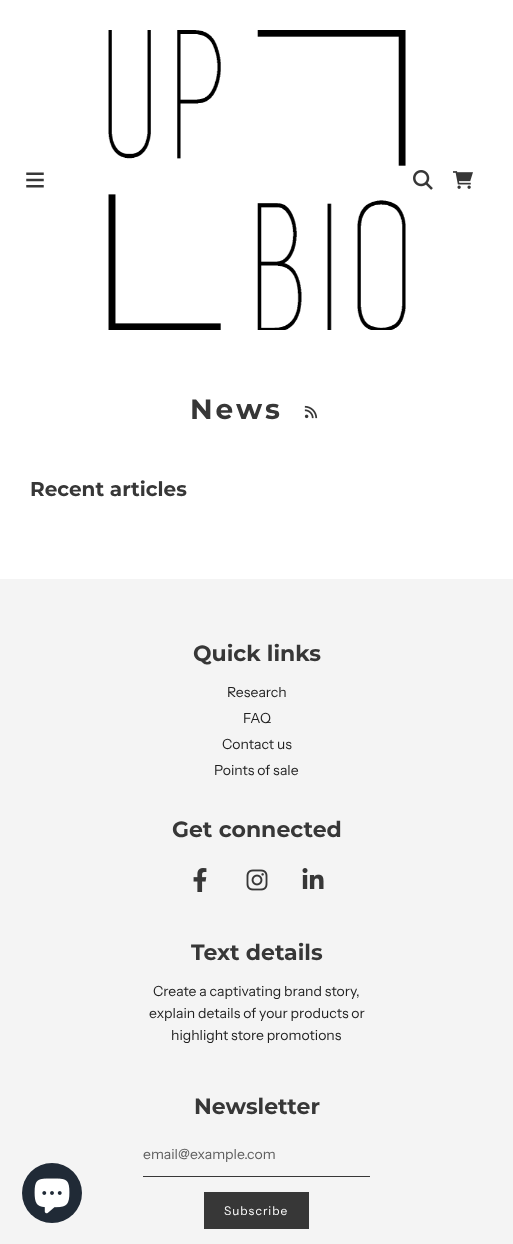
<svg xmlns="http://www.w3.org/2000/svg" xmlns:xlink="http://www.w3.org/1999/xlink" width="513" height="1244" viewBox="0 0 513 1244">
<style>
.cls-1{font:bold 28px Montserrat;letter-spacing:3px;fill:#373737}
.cls-2{font:bold 20px Montserrat;fill:#373737}
.cls-3{font:bold 22px Montserrat;fill:#373737}
.cls-4{font:14px Instrument Sans;fill:#1e1e1e}
.cls-5{font:14px Instrument Sans;fill:#5d5d5d}
.cls-6{font:12px Instrument Sans;letter-spacing:1px;fill:#ffffff}
</style>
<rect width="100%" height="100%" fill="#ffffff"/>
<image xlink:href="image0.png" x="26" y="172" width="18" height="16"/>
<image xlink:href="image1.png" x="108" y="30" width="298" height="300"/>
<image xlink:href="image2.png" x="413" y="170" width="20" height="20"/>
<image xlink:href="image3.png" x="453" y="171" width="20" height="18"/>
<image xlink:href="image4.png" x="304" y="405" width="14" height="14"/>
<rect fill="#f4f4f4" x="0" y="579" width="513" height="665"/>
<circle fill="#202a36" cx="52" cy="1193" r="30"/>
<image xlink:href="image5.png" x="34" y="1178" width="36" height="36"/>
<image xlink:href="image6.png" x="193" y="868" width="14" height="24"/>
<image xlink:href="image7.png" x="246" y="869" width="22" height="22"/>
<image xlink:href="image8.png" x="302" y="868" width="22" height="21"/>
<rect fill="#373737" x="143" y="1176" width="227" height="1"/>
<rect fill="#373737" x="204" y="1192" width="105" height="37"/>
<text class="cls-1" x="190" y="419">News</text>
<text class="cls-2" x="30" y="496">Recent articles</text>
<text class="cls-3" x="193" y="661">Quick links</text>
<text class="cls-4" x="227" y="697">Research</text>
<text class="cls-4" x="243" y="723">FAQ</text>
<text class="cls-4" x="222" y="749">Contact us</text>
<text class="cls-4" x="214" y="775">Points of sale</text>
<text class="cls-3" x="172" y="837">Get connected</text>
<text class="cls-3" x="191" y="960">Text details</text>
<text class="cls-4" x="153" y="996">Create a captivating brand story,</text>
<text class="cls-4" x="149" y="1018">explain details of your products or</text>
<text class="cls-4" x="171" y="1040">highlight store promotions</text>
<text class="cls-3" x="194" y="1114">Newsletter</text>
<text class="cls-5" x="143" y="1159">email@example.com</text>
<text class="cls-6" x="224" y="1215">Subscribe</text>
</svg>
